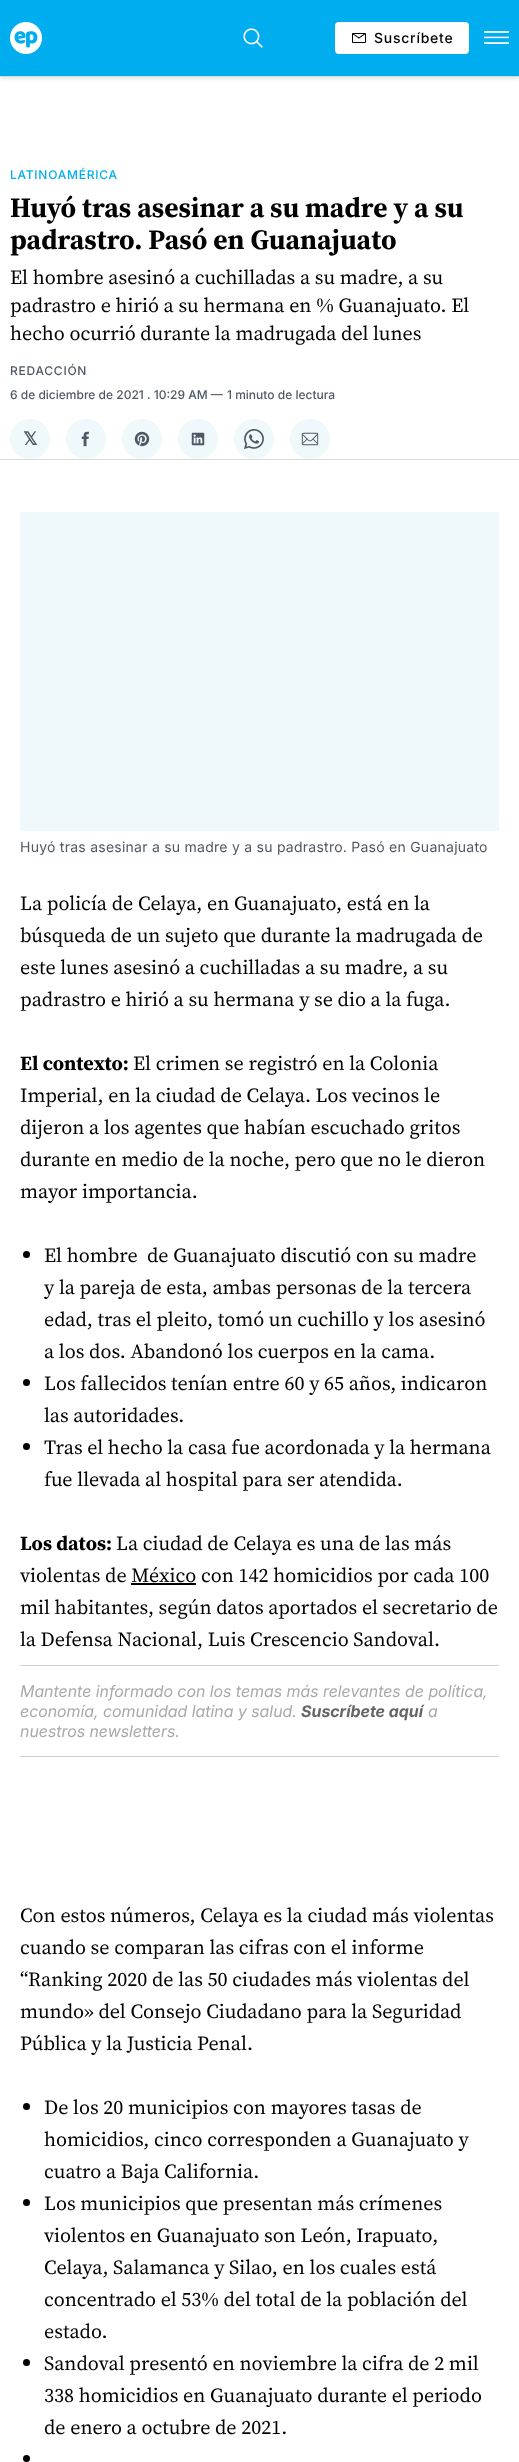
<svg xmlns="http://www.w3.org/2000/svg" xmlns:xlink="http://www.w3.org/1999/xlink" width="519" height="2462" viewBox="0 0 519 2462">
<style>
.cls-1{font:500 14px Inter;letter-spacing:0.75px;fill:#000000}
.cls-2{font:500 12px Inter;letter-spacing:0.75px;fill:#00aeef}
.cls-3{font:bold 28px 'Source Serif 4';fill:#000000}
.cls-4{font:20px 'Source Serif 4';fill:#000000}
.cls-5{font:500 12px Inter;letter-spacing:0.75px;fill:#4e5965}
.cls-6{font:500 12px Inter;fill:#4e5965}
.cls-7{font:bold 18px DejaVu Sans;fill:#4e5965}
.cls-8{font:14px Inter;letter-spacing:0.25px;fill:#4e5965}
.cls-9{font:bold 20px 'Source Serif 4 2';fill:#000000}
.cls-10{font:italic 16px Inter;fill:#a9a9a9}
.cls-11{font:italic bold 16px Inter;fill:#666666}
</style>
<rect width="100%" height="100%" fill="#ffffff"/>
<rect fill="#000000" fill-opacity="0.1" filter="blur(2px)" x="0" y="2" width="519" height="77"/>
<rect fill="#00aeef" x="0" y="0" width="519" height="76"/>
<rect fill="#d9d9d9" x="0" y="76" width="519" height="1"/>
<image xlink:href="image0.png" x="10" y="22" width="32" height="32"/>
<image xlink:href="image1.png" x="243" y="28" width="20" height="20"/>
<rect fill="#ffffff" x="335" y="22" width="134" height="32" rx="4"/>
<image xlink:href="image2.png" x="352" y="33" width="14" height="10"/>
<image xlink:href="image3.png" x="484" y="31" width="25" height="13"/>
<rect fill="#d9d9d9" x="0" y="459" width="519" height="1"/>
<circle fill="#eff8fa" cx="30" cy="439" r="20"/>
<circle fill="#eff8fa" cx="86" cy="439" r="20"/>
<image xlink:href="image4.png" x="81" y="431" width="8" height="16"/>
<circle fill="#eff8fa" cx="142" cy="439" r="20"/>
<image xlink:href="image5.png" x="134" y="431" width="16" height="16"/>
<circle fill="#eff8fa" cx="198" cy="439" r="20"/>
<image xlink:href="image6.png" x="191" y="432" width="14" height="14"/>
<circle fill="#eff8fa" cx="254" cy="439" r="20"/>
<image xlink:href="image7.png" x="244" y="429" width="20" height="20"/>
<circle fill="#eff8fa" cx="310" cy="439" r="20"/>
<image xlink:href="image8.png" x="301" y="432" width="18" height="14"/>
<rect fill="#eff8fa" x="20" y="512" width="479" height="319"/>
<circle fill="#000000" cx="26.5" cy="1254.5" r="3.5"/>
<circle fill="#000000" cx="26.5" cy="1382.5" r="3.5"/>
<circle fill="#000000" cx="26.5" cy="1446.5" r="3.5"/>
<rect fill="#000000" x="131" y="1583" width="65" height="2"/>
<rect fill="#d0d0d0" x="20" y="1665" width="479" height="1"/>
<rect fill="#d0d0d0" x="20" y="1756" width="479" height="1"/>
<circle fill="#000000" cx="26.5" cy="2106.5" r="3.5"/>
<circle fill="#000000" cx="26.5" cy="2202.5" r="3.5"/>
<circle fill="#000000" cx="26.5" cy="2362.5" r="3.5"/>
<circle fill="#000000" cx="26.5" cy="2458.5" r="3.5"/>
<text class="cls-1" x="374" y="43">Suscríbete</text>
<text class="cls-2" x="10" y="179">LATINOAMÉRICA</text>
<text class="cls-3"><tspan x="10" y="217">Huyó tras asesinar a su madre y a su</tspan><tspan x="10" y="249">padrastro. Pasó en Guanajuato</tspan></text>
<text class="cls-4"><tspan x="10" y="284">El hombre asesinó a cuchilladas a su madre, a su</tspan><tspan x="10" y="312">padrastro e hirió a su hermana en % Guanajuato. El</tspan><tspan x="10" y="340">hecho ocurrió durante la madrugada del lunes</tspan></text>
<text class="cls-5" x="10" y="375">REDACCIÓN</text>
<text class="cls-6" x="10" y="399">6 de diciembre de 2021 . 10:29 AM —</text>
<text class="cls-6" x="227" y="399">1 minuto de lectura</text>
<text class="cls-7" x="23" y="445">𝕏</text>
<text class="cls-8" x="20" y="852">Huyó tras asesinar a su madre y a su padrastro. Pasó en Guanajuato</text>
<text class="cls-4"><tspan x="20" y="910">La policía de Celaya, en Guanajuato, está en la</tspan><tspan x="20" y="942">búsqueda de un sujeto que durante la madrugada de</tspan><tspan x="20" y="974">este lunes asesinó a cuchilladas a su madre, a su</tspan><tspan x="20" y="1006">padrastro e hirió a su hermana y se dio a la fuga.</tspan></text>
<text class="cls-9" x="20" y="1070">El contexto:</text>
<text class="cls-4" x="133" y="1070">El crimen se registró en la Colonia</text>
<text class="cls-4"><tspan x="20" y="1102">Imperial, en la ciudad de Celaya. Los vecinos le</tspan><tspan x="20" y="1134">dijeron a los agentes que habían escuchado gritos</tspan><tspan x="20" y="1166">durante en medio de la noche, pero que no le dieron</tspan><tspan x="20" y="1198">mayor importancia.</tspan></text>
<text class="cls-4" xml:space="preserve"><tspan x="44" y="1262">El hombre  de Guanajuato discutió con su madre</tspan><tspan x="44" y="1294">y la pareja de esta, ambas personas de la tercera</tspan><tspan x="44" y="1326">edad, tras el pleito, tomó un cuchillo y los asesinó</tspan><tspan x="44" y="1358">a los dos. Abandonó los cuerpos en la cama.</tspan><tspan x="44" y="1390">Los fallecidos tenían entre 60 y 65 años, indicaron</tspan><tspan x="44" y="1422">las autoridades.</tspan><tspan x="44" y="1454">Tras el hecho la casa fue acordonada y la hermana</tspan><tspan x="44" y="1486">fue llevada al hospital para ser atendida.</tspan></text>
<text class="cls-9" x="20" y="1550">Los datos:</text>
<text class="cls-4" x="116" y="1550">La ciudad de Celaya es una de las más</text>
<text class="cls-4"><tspan x="20" y="1582">violentas de México con 142 homicidios por cada 100</tspan><tspan x="20" y="1614">mil habitantes, según datos aportados el secretario de</tspan><tspan x="20" y="1646">la Defensa Nacional, Luis Crescencio Sandoval.</tspan></text>
<text class="cls-10"><tspan x="20" y="1697">Mantente informado con los temas más relevantes de política,</tspan><tspan x="20" y="1717">economía, comunidad latina y salud.</tspan></text>
<text class="cls-11" x="301" y="1717">Suscríbete aquí</text>
<text class="cls-10" x="428" y="1717">a</text>
<text class="cls-10" x="20" y="1737">nuestros newsletters.</text>
<text class="cls-4"><tspan x="20" y="1922">Con estos números, Celaya es la ciudad más violentas</tspan><tspan x="20" y="1954">cuando se comparan las cifras con el informe</tspan><tspan x="20" y="1986">“Ranking 2020 de las 50 ciudades más violentas del</tspan><tspan x="20" y="2018">mundo» del Consejo Ciudadano para la Seguridad</tspan><tspan x="20" y="2050">Pública y la Justicia Penal.</tspan></text>
<text class="cls-4"><tspan x="44" y="2114">De los 20 municipios con mayores tasas de</tspan><tspan x="44" y="2146">homicidios, cinco corresponden a Guanajuato y</tspan><tspan x="44" y="2178">cuatro a Baja California.</tspan><tspan x="44" y="2210">Los municipios que presentan más crímenes</tspan><tspan x="44" y="2242">violentos en Guanajuato son León, Irapuato,</tspan><tspan x="44" y="2274">Celaya, Salamanca y Silao, en los cuales está</tspan><tspan x="44" y="2306">concentrado el 53% del total de la población del</tspan><tspan x="44" y="2338">estado.</tspan><tspan x="44" y="2370">Sandoval presentó en noviembre la cifra de 2 mil</tspan><tspan x="44" y="2402">338 homicidios en Guanajuato durante el periodo</tspan><tspan x="44" y="2434">de enero a octubre de 2021.</tspan></text>
</svg>
